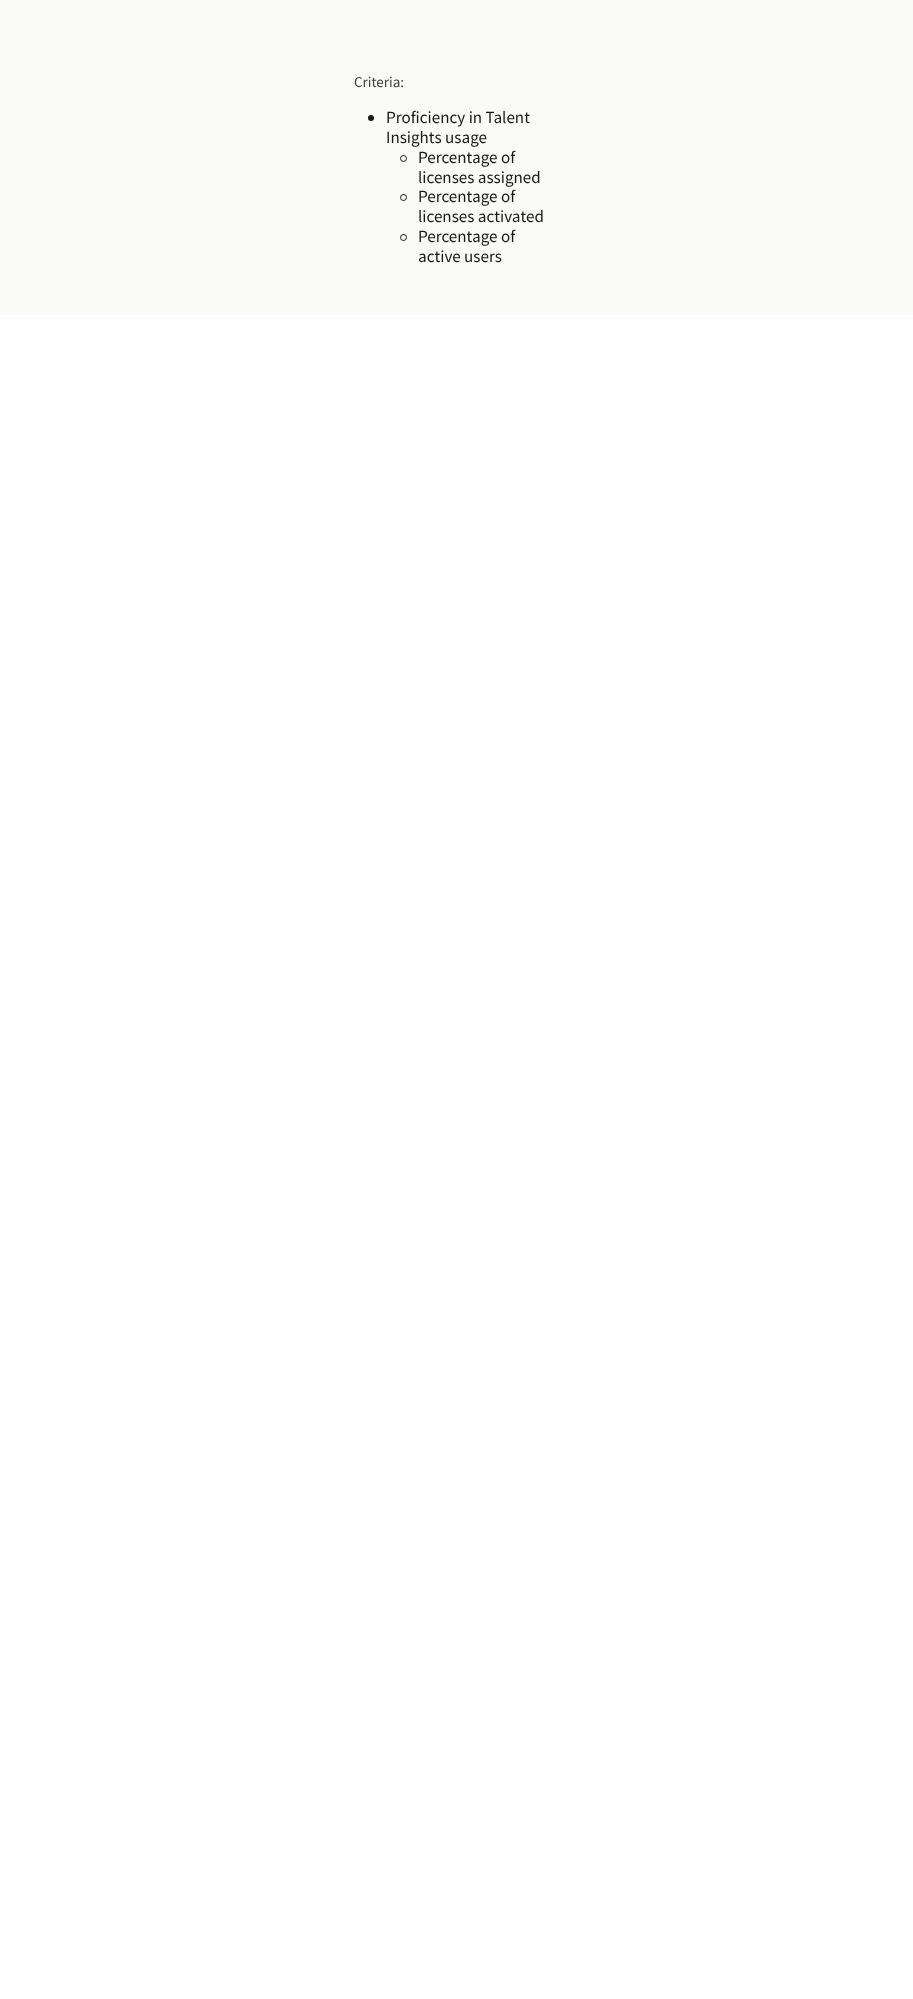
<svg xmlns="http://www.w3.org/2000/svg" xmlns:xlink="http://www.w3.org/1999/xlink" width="913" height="1999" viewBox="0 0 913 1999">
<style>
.cls-1{font:15px Source Sans Pro;fill:#3f3f3e}
.cls-2{font:17px Source Sans Pro;fill:#191919}
</style>
<rect width="100%" height="100%" fill="#ffffff"/>
<rect fill="#fafaf9" x="0" y="0" width="913" height="315"/>
<circle fill="#191919" cx="371" cy="118" r="3"/>
<circle fill="none" stroke="#191919" cx="403.5" cy="158.5" r="3"/>
<circle fill="none" stroke="#191919" cx="403.5" cy="197.5" r="3"/>
<circle fill="none" stroke="#191919" cx="403.5" cy="237.5" r="3"/>
<text class="cls-1" x="354" y="87">Criteria:</text>
<text class="cls-2"><tspan x="386" y="123">Proficiency in Talent</tspan><tspan x="386" y="143">Insights usage</tspan></text>
<text class="cls-2"><tspan x="418" y="163">Percentage of</tspan><tspan x="418" y="183">licenses assigned</tspan><tspan x="418" y="202">Percentage of</tspan><tspan x="418" y="222">licenses activated</tspan><tspan x="418" y="242">Percentage of</tspan><tspan x="418" y="262">active users</tspan></text>
</svg>
